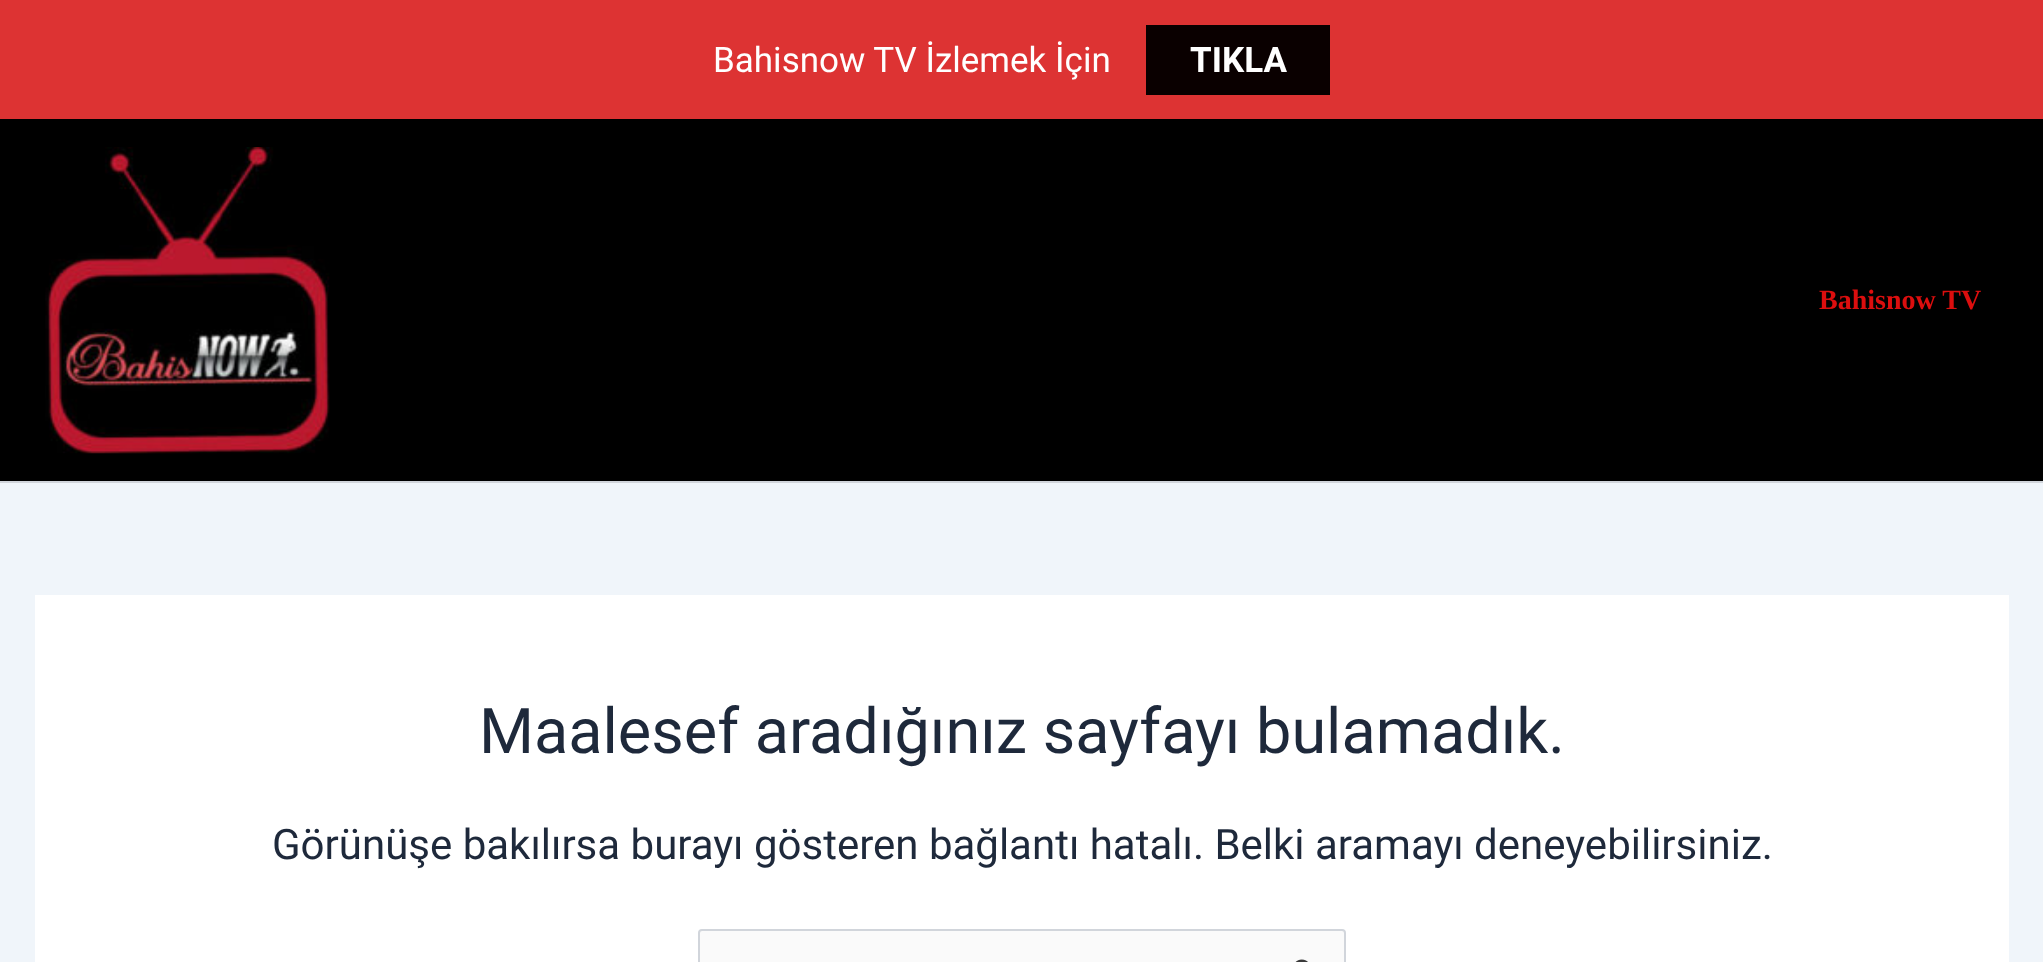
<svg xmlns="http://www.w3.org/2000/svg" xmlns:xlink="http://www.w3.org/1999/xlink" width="2043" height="962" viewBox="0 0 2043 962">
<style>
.cls-1{font:35px Roboto;fill:#ffffff}
.cls-2{font:bold 35px Roboto;fill:#ffffff}
.cls-3{font:bold 28px Liberation Serif;fill:#dc0e0e}
.cls-4{font:63px Roboto;fill:#1e293b}
.cls-5{font:42px Roboto;fill:#1e293b}
</style>
<rect width="100%" height="100%" fill="#f0f5fa"/>
<rect fill="#dd3333" x="0" y="0" width="2043" height="119"/>
<rect fill="#0a0000" x="1146" y="25" width="184" height="70"/>
<rect fill="#000000" x="0" y="119" width="2043" height="362"/>
<rect fill="#d1d5db" x="0" y="481" width="2043" height="2"/>
<image xlink:href="image0.png" x="45" y="147" width="285" height="307"/>
<rect fill="#ffffff" x="35" y="595" width="1974" height="367"/>
<rect fill="#fafafa" stroke="#d1d5db" stroke-width="2" x="699" y="930" width="646" height="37" rx="3"/>
<image xlink:href="image1.png" x="1295" y="959" width="13" height="3"/>
<text class="cls-1" x="713" y="72">Bahisnow TV İzlemek İçin</text>
<text class="cls-2" x="1190" y="72">TIKLA</text>
<text class="cls-3" x="1819" y="309">Bahisnow TV</text>
<text class="cls-4" x="479" y="753">Maalesef aradığınız sayfayı bulamadık.</text>
<text class="cls-5" x="272" y="859">Görünüşe bakılırsa burayı gösteren bağlantı hatalı. Belki aramayı deneyebilirsiniz.</text>
</svg>
